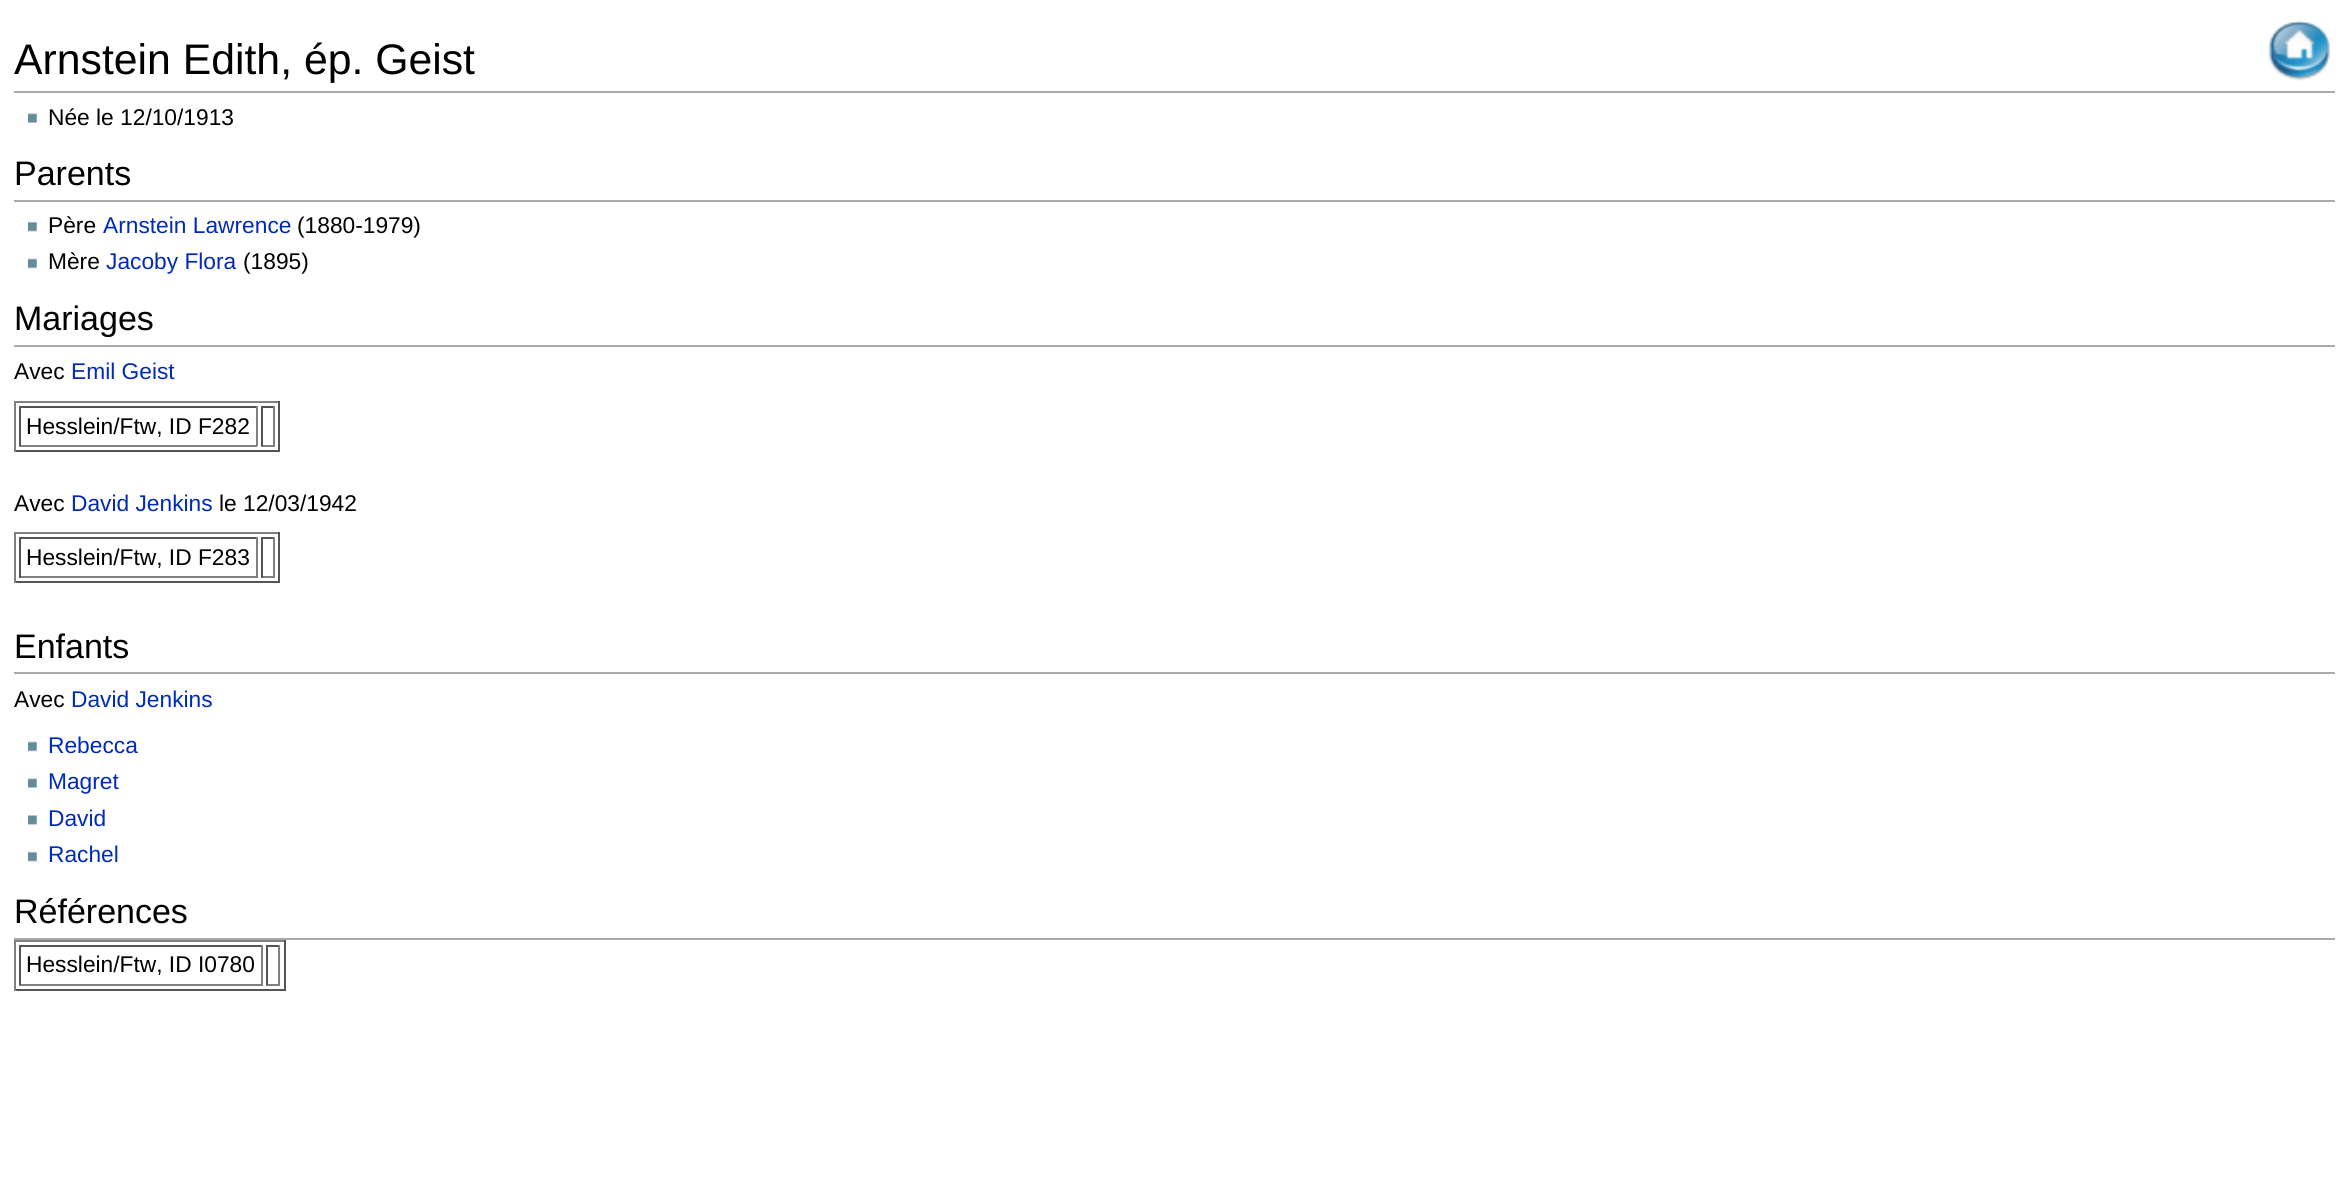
#include <cairo.h>
#include <math.h>
#include <stddef.h>

typedef struct { double x, y, w, h; unsigned color; } box_t;

static void ink(cairo_t *ctx, unsigned color) {
    cairo_set_source_rgb(ctx, (color >> 16) / 255.0, (color >> 8 & 255) / 255.0, (color & 255) / 255.0);
}

static void paste(cairo_t *ctx, const char *path, double x, double y, double w, double h) {
    cairo_surface_t *image = cairo_image_surface_create_from_png(path);
    cairo_save(ctx);
    cairo_set_source_surface(ctx, image, x, y);
    cairo_rectangle(ctx, x, y, w, h);
    cairo_fill(ctx);
    cairo_restore(ctx);
    cairo_surface_destroy(image);
}

int main(void) {
    cairo_surface_t *surface = cairo_image_surface_create(CAIRO_FORMAT_RGB24, 2348, 1178);
    cairo_t *ctx = cairo_create(surface);
    cairo_font_options_t *options = cairo_font_options_create();
    cairo_font_options_set_hint_metrics(options, CAIRO_HINT_METRICS_OFF);
    cairo_font_options_set_hint_style(options, CAIRO_HINT_STYLE_NONE);
    cairo_set_font_options(ctx, options);
    cairo_set_miter_limit(ctx, 4);
    ink(ctx, 0xFFFFFF);
    cairo_paint(ctx);
    ink(ctx, 0xAAAAAA);
    cairo_rectangle(ctx, 14, 91, 2321, 2);
    cairo_fill(ctx);
    cairo_select_font_face(ctx, "Liberation Sans", CAIRO_FONT_SLANT_NORMAL, CAIRO_FONT_WEIGHT_NORMAL);
    cairo_set_font_size(ctx, 42.75);
    ink(ctx, 0x000000);
    cairo_move_to(ctx, 14, 74);
    cairo_show_text(ctx, "Arnstein Edith, ép. Geist");
    paste(ctx, "media/1.png", 2268, 20, 63, 61);
    paste(ctx, "media/2.png", 28, 113, 9, 10);
    cairo_set_font_size(ctx, 22.75);
    cairo_move_to(ctx, 48, 125);
    cairo_show_text(ctx, "Née le 12/10/1913");
    ink(ctx, 0xAAAAAA);
    cairo_rectangle(ctx, 14, 200, 2321, 2);
    cairo_fill(ctx);
    cairo_set_font_size(ctx, 34);
    ink(ctx, 0x000000);
    cairo_move_to(ctx, 14, 185);
    cairo_show_text(ctx, "Parents");
    paste(ctx, "media/3.png", 28, 221, 9, 11);
    cairo_set_font_size(ctx, 22.75);
    cairo_move_to(ctx, 48, 233);
    cairo_show_text(ctx, "Père");
    ink(ctx, 0x002BB8);
    cairo_move_to(ctx, 103, 233);
    cairo_show_text(ctx, "Arnstein Lawrence");
    ink(ctx, 0x000000);
    cairo_move_to(ctx, 297, 233);
    cairo_show_text(ctx, "(1880-1979)");
    paste(ctx, "media/4.png", 28, 258, 9, 11);
    cairo_move_to(ctx, 48, 269);
    cairo_show_text(ctx, "Mère");
    ink(ctx, 0x002BB8);
    cairo_move_to(ctx, 106, 269);
    cairo_show_text(ctx, "Jacoby Flora");
    ink(ctx, 0x000000);
    cairo_move_to(ctx, 243, 269);
    cairo_show_text(ctx, "(1895)");
    ink(ctx, 0xAAAAAA);
    cairo_rectangle(ctx, 14, 345, 2321, 2);
    cairo_fill(ctx);
    cairo_set_font_size(ctx, 34);
    ink(ctx, 0x000000);
    cairo_move_to(ctx, 14, 330);
    cairo_show_text(ctx, "Mariages");
    cairo_set_font_size(ctx, 22.75);
    cairo_move_to(ctx, 14, 379);
    cairo_show_text(ctx, "Avec");
    ink(ctx, 0x002BB8);
    cairo_move_to(ctx, 71, 379);
    cairo_show_text(ctx, "Emil Geist");
    {
        static const box_t items[] = {
            {14, 401, 266, 2, 0x808080},
            {278, 401, 2, 51, 0x555555},
            {14, 450, 266, 2, 0x555555},
            {14, 401, 2, 51, 0x808080},
            {19, 406, 238, 2, 0x555555},
            {256, 406, 2, 40, 0x808080},
            {19, 445, 238, 2, 0x808080},
            {19, 406, 2, 40, 0x555555},
        };
        for (size_t i = 0; i < sizeof items / sizeof *items; i++) {
            ink(ctx, items[i].color);
            cairo_rectangle(ctx, items[i].x, items[i].y, items[i].w, items[i].h);
            cairo_fill(ctx);
        }
    }
    ink(ctx, 0x000000);
    cairo_move_to(ctx, 26, 434);
    cairo_show_text(ctx, "Hesslein/Ftw, ID F282");
    {
        static const box_t items[] = {
            {261, 406, 14, 2, 0x555555},
            {273, 406, 2, 40, 0x808080},
            {261, 445, 14, 2, 0x808080},
            {261, 406, 2, 40, 0x555555},
        };
        for (size_t i = 0; i < sizeof items / sizeof *items; i++) {
            ink(ctx, items[i].color);
            cairo_rectangle(ctx, items[i].x, items[i].y, items[i].w, items[i].h);
            cairo_fill(ctx);
        }
    }
    ink(ctx, 0x000000);
    cairo_move_to(ctx, 14, 511);
    cairo_show_text(ctx, "Avec");
    ink(ctx, 0x002BB8);
    cairo_move_to(ctx, 71, 511);
    cairo_show_text(ctx, "David Jenkins");
    ink(ctx, 0x000000);
    cairo_move_to(ctx, 219, 511);
    cairo_show_text(ctx, "le 12/03/1942");
    {
        static const box_t items[] = {
            {14, 532, 266, 2, 0x808080},
            {278, 532, 2, 51, 0x555555},
            {14, 581, 266, 2, 0x555555},
            {14, 532, 2, 51, 0x808080},
            {19, 537, 238, 2, 0x555555},
            {256, 537, 2, 41, 0x808080},
            {19, 576, 238, 2, 0x808080},
            {19, 537, 2, 41, 0x555555},
        };
        for (size_t i = 0; i < sizeof items / sizeof *items; i++) {
            ink(ctx, items[i].color);
            cairo_rectangle(ctx, items[i].x, items[i].y, items[i].w, items[i].h);
            cairo_fill(ctx);
        }
    }
    ink(ctx, 0x000000);
    cairo_move_to(ctx, 26, 565);
    cairo_show_text(ctx, "Hesslein/Ftw, ID F283");
    {
        static const box_t items[] = {
            {261, 537, 14, 2, 0x555555},
            {273, 537, 2, 41, 0x808080},
            {261, 576, 14, 2, 0x808080},
            {261, 537, 2, 41, 0x555555},
            {14, 672, 2321, 2, 0xAAAAAA},
        };
        for (size_t i = 0; i < sizeof items / sizeof *items; i++) {
            ink(ctx, items[i].color);
            cairo_rectangle(ctx, items[i].x, items[i].y, items[i].w, items[i].h);
            cairo_fill(ctx);
        }
    }
    cairo_set_font_size(ctx, 34);
    ink(ctx, 0x000000);
    cairo_move_to(ctx, 14, 658);
    cairo_show_text(ctx, "Enfants");
    cairo_set_font_size(ctx, 22.75);
    cairo_move_to(ctx, 14, 707);
    cairo_show_text(ctx, "Avec");
    ink(ctx, 0x002BB8);
    cairo_move_to(ctx, 71, 707);
    cairo_show_text(ctx, "David Jenkins");
    paste(ctx, "media/4.png", 28, 741, 9, 11);
    cairo_move_to(ctx, 48, 753);
    cairo_show_text(ctx, "Rebecca");
    paste(ctx, "media/5.png", 28, 778, 9, 10);
    cairo_move_to(ctx, 48, 789);
    cairo_show_text(ctx, "Magret");
    paste(ctx, "media/6.png", 28, 815, 9, 10);
    cairo_move_to(ctx, 48, 826);
    cairo_show_text(ctx, "David");
    paste(ctx, "media/3.png", 28, 851, 9, 11);
    cairo_move_to(ctx, 48, 862);
    cairo_show_text(ctx, "Rachel");
    ink(ctx, 0xAAAAAA);
    cairo_rectangle(ctx, 14, 938, 2321, 2);
    cairo_fill(ctx);
    cairo_set_font_size(ctx, 34);
    ink(ctx, 0x000000);
    cairo_move_to(ctx, 14, 923);
    cairo_show_text(ctx, "Références");
    {
        static const box_t items[] = {
            {14, 940, 271, 2, 0x808080},
            {284, 940, 2, 51, 0x555555},
            {14, 989, 271, 2, 0x555555},
            {14, 940, 2, 51, 0x808080},
            {19, 945, 244, 2, 0x555555},
            {261, 945, 2, 40, 0x808080},
            {19, 984, 244, 2, 0x808080},
            {19, 945, 2, 40, 0x555555},
        };
        for (size_t i = 0; i < sizeof items / sizeof *items; i++) {
            ink(ctx, items[i].color);
            cairo_rectangle(ctx, items[i].x, items[i].y, items[i].w, items[i].h);
            cairo_fill(ctx);
        }
    }
    cairo_set_font_size(ctx, 22.75);
    ink(ctx, 0x000000);
    cairo_move_to(ctx, 26, 972);
    cairo_show_text(ctx, "Hesslein/Ftw, ID I0780");
    {
        static const box_t items[] = {
            {266, 945, 14, 2, 0x555555},
            {278, 945, 2, 40, 0x808080},
            {266, 984, 14, 2, 0x808080},
            {266, 945, 2, 40, 0x555555},
        };
        for (size_t i = 0; i < sizeof items / sizeof *items; i++) {
            ink(ctx, items[i].color);
            cairo_rectangle(ctx, items[i].x, items[i].y, items[i].w, items[i].h);
            cairo_fill(ctx);
        }
    }
    cairo_surface_write_to_png(surface, "image.png");
    cairo_font_options_destroy(options);
    cairo_destroy(ctx);
    cairo_surface_destroy(surface);
    return 0;
}
